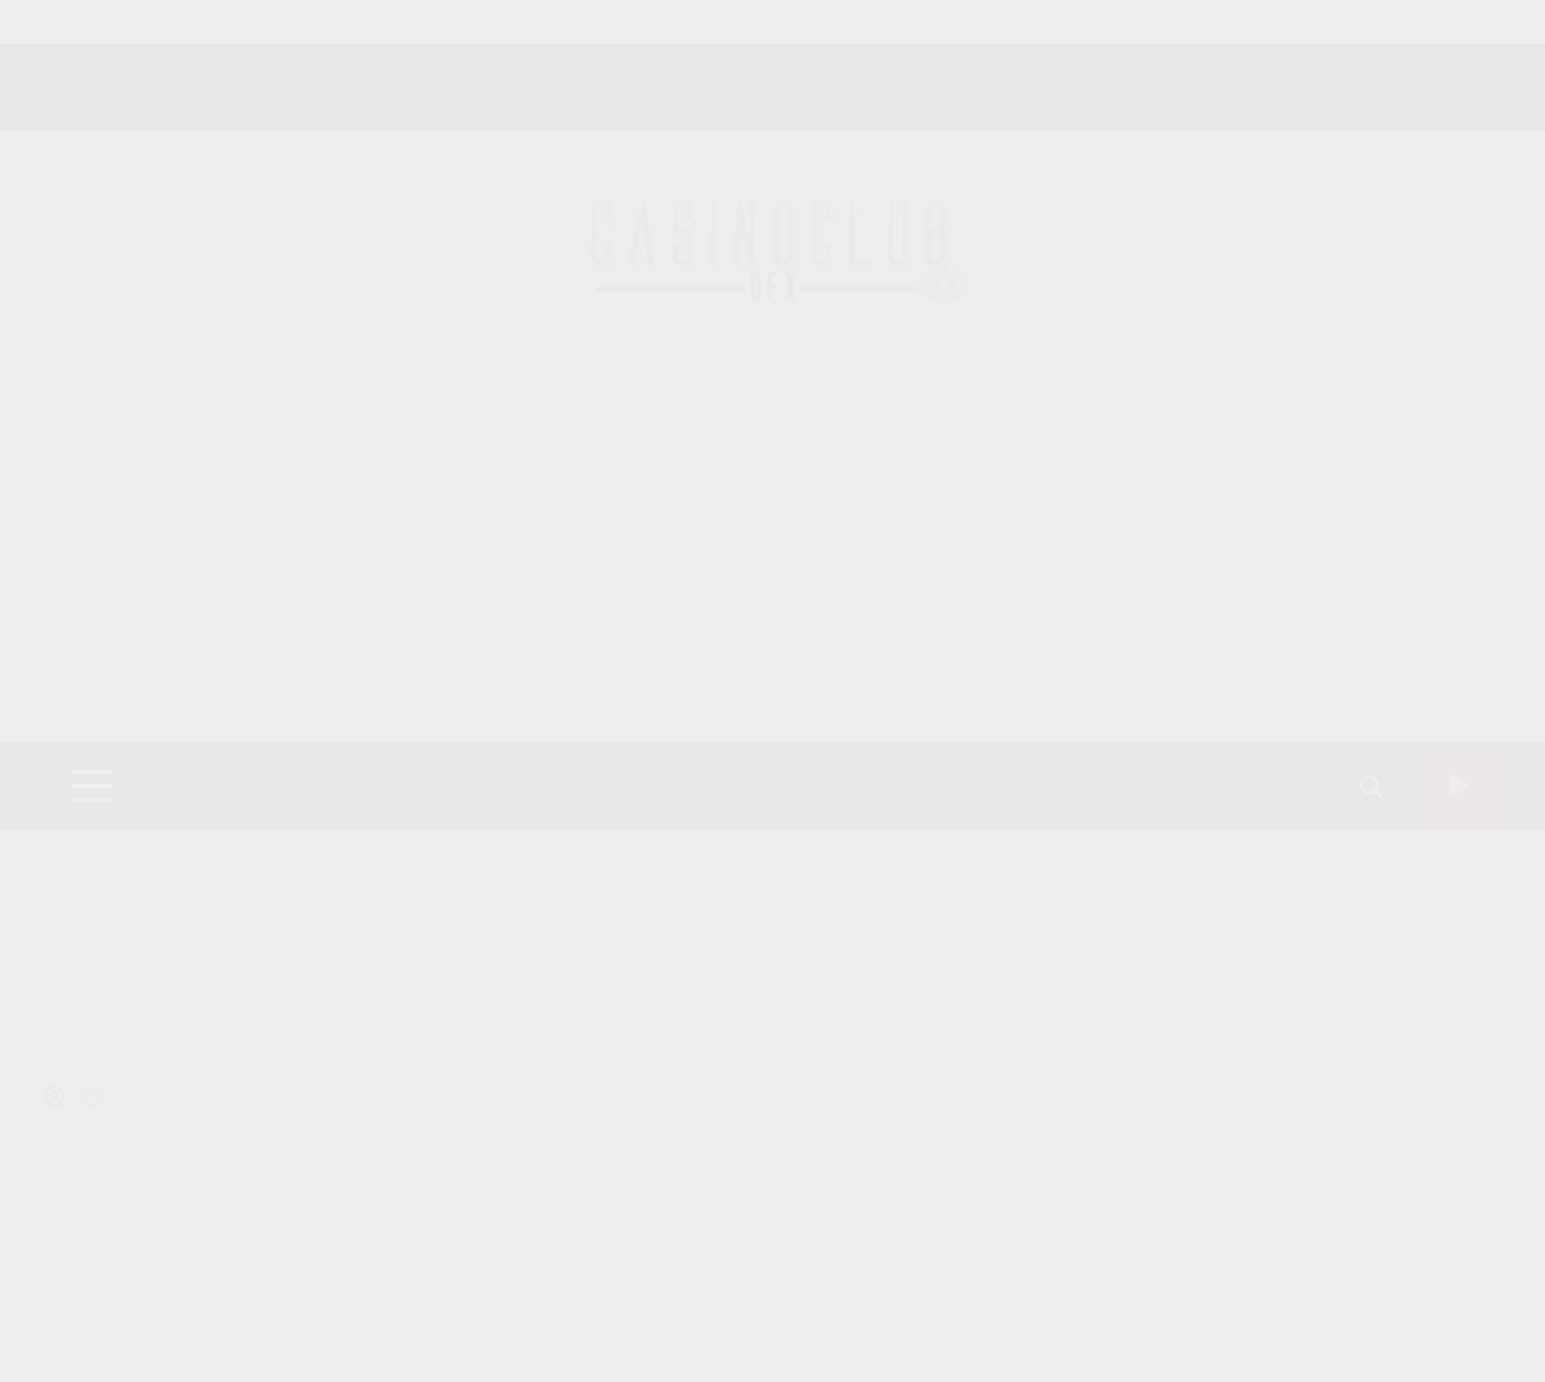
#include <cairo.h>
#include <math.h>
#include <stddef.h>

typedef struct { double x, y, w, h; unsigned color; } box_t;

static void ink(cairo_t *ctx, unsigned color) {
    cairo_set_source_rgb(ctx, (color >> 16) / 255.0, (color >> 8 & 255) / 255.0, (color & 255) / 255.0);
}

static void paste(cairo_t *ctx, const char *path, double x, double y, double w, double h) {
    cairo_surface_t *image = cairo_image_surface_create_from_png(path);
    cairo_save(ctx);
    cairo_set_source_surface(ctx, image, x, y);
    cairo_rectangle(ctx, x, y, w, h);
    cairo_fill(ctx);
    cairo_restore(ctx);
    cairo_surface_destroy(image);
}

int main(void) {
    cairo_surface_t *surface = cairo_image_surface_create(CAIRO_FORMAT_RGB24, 1545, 1382);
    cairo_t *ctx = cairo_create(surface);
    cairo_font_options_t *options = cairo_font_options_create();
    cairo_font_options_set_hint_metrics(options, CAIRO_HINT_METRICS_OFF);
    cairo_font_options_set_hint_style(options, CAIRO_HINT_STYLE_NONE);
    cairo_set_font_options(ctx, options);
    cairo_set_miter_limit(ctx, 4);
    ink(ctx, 0xEEEEEE);
    cairo_paint(ctx);
    ink(ctx, 0xE8E8E8);
    cairo_rectangle(ctx, 0, 44, 1545, 87);
    cairo_fill(ctx);
    paste(ctx, "media/1.png", 588, 196, 382, 108);
    {
        static const box_t items[] = {
            {0, 742, 1545, 88, 0xE8E8E8},
            {72, 784, 40, 4, 0xEFEFEF},
            {72, 770, 40, 4, 0xEFEFEF},
            {72, 798, 40, 4, 0xEFEFEF},
        };
        for (size_t i = 0; i < sizeof items / sizeof *items; i++) {
            ink(ctx, items[i].color);
            cairo_rectangle(ctx, items[i].x, items[i].y, items[i].w, items[i].h);
            cairo_fill(ctx);
        }
    }
    paste(ctx, "media/2.png", 1359, 775, 24, 23);
    ink(ctx, 0xECE8E8);
    cairo_rectangle(ctx, 1416, 744, 86, 86);
    cairo_fill(ctx);
    paste(ctx, "media/3.png", 1449, 774, 19, 23);
    paste(ctx, "media/4.png", 43, 1086, 22, 22);
    paste(ctx, "media/5.png", 84, 1086, 21, 22);
    cairo_surface_write_to_png(surface, "image.png");
    cairo_font_options_destroy(options);
    cairo_destroy(ctx);
    cairo_surface_destroy(surface);
    return 0;
}
